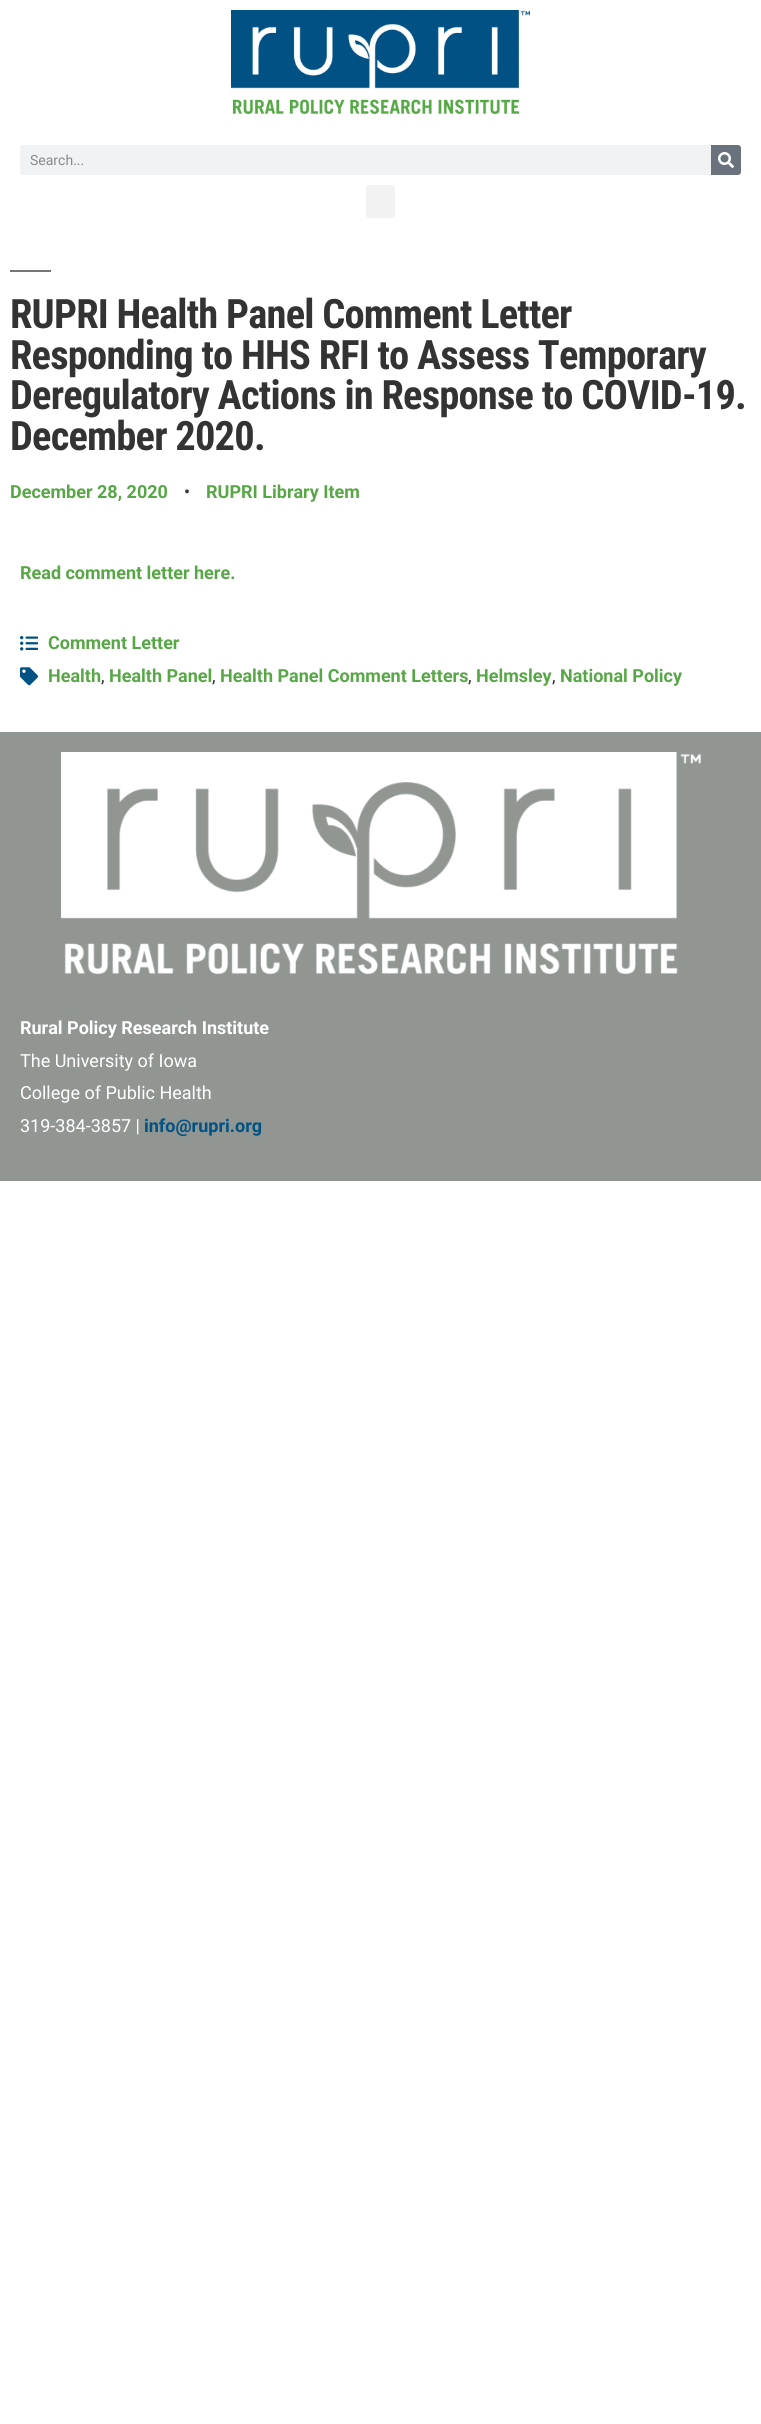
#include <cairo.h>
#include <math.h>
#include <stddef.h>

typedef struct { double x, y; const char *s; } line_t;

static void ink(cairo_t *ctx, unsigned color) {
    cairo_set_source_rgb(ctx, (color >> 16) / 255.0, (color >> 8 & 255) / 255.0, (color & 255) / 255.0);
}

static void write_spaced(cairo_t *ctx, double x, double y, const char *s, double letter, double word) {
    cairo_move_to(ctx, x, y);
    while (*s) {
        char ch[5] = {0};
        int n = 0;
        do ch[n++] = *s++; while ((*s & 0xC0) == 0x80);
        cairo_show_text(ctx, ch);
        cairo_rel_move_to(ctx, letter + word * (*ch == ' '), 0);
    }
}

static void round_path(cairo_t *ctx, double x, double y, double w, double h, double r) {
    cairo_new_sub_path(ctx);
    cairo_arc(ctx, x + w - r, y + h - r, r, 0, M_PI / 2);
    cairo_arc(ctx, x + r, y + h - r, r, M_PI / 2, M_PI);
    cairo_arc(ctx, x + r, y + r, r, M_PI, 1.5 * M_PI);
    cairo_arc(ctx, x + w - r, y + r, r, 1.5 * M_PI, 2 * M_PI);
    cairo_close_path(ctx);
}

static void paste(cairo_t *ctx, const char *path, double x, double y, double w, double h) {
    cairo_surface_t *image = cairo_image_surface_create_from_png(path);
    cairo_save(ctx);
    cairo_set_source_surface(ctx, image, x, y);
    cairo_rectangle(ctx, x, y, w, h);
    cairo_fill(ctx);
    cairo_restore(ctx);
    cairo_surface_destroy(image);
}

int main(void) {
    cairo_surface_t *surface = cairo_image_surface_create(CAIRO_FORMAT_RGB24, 761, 2424);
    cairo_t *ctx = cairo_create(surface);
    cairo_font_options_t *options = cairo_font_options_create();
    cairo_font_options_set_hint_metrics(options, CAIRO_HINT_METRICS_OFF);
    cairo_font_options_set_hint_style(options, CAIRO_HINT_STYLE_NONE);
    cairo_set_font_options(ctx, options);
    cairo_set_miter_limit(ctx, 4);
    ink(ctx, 0xFFFFFF);
    cairo_paint(ctx);
    paste(ctx, "media/1.png", 231, 10, 299, 104);
    ink(ctx, 0xF1F2F3);
    round_path(ctx, 20, 145, 721, 30, 3);
    cairo_fill(ctx);
    cairo_select_font_face(ctx, "Roboto", CAIRO_FONT_SLANT_NORMAL, CAIRO_FONT_WEIGHT_NORMAL);
    cairo_set_font_size(ctx, 14);
    ink(ctx, 0x868A8E);
    cairo_move_to(ctx, 30, 165);
    cairo_show_text(ctx, "Search...");
    ink(ctx, 0x69727D);
    cairo_new_path(ctx);
    cairo_move_to(ctx, 711, 145);
    cairo_line_to(ctx, 738, 145);
    cairo_curve_to(ctx, 739.5, 145, 741, 146.5, 741, 148);
    cairo_line_to(ctx, 741, 172);
    cairo_curve_to(ctx, 741, 173.5, 739.5, 175, 738, 175);
    cairo_line_to(ctx, 711, 175);
    cairo_close_path(ctx);
    cairo_fill(ctx);
    paste(ctx, "media/2.png", 718, 152, 16, 16);
    ink(ctx, 0xF2F2F2);
    round_path(ctx, 366, 185, 29, 33, 3);
    cairo_fill(ctx);
    ink(ctx, 0x767676);
    cairo_rectangle(ctx, 10, 270, 41, 2);
    cairo_fill(ctx);
    cairo_select_font_face(ctx, "Roboto Condensed", CAIRO_FONT_SLANT_NORMAL, CAIRO_FONT_WEIGHT_BOLD);
    cairo_set_font_size(ctx, 40.5);
    ink(ctx, 0x333333);
    {
        static const line_t items[] = {
            {10, 328, "RUPRI Health Panel Comment Letter"},
            {10, 369, "Responding to HHS RFI to Assess Temporary"},
            {10, 409, "Deregulatory Actions in Response to COVID-19."},
            {10, 450, "December 2020."},
        };
        for (size_t i = 0; i < sizeof items / sizeof *items; i++) {
            write_spaced(ctx, items[i].x, items[i].y, items[i].s, -0.8, 0);
        }
    }
    cairo_select_font_face(ctx, "Roboto", CAIRO_FONT_SLANT_NORMAL, CAIRO_FONT_WEIGHT_BOLD);
    cairo_set_font_size(ctx, 18);
    ink(ctx, 0x57A746);
    cairo_move_to(ctx, 10, 498);
    cairo_show_text(ctx, "December 28, 2020");
    cairo_select_font_face(ctx, "Roboto", CAIRO_FONT_SLANT_NORMAL, CAIRO_FONT_WEIGHT_NORMAL);
    ink(ctx, 0x333333);
    cairo_move_to(ctx, 184, 498);
    cairo_show_text(ctx, "•");
    cairo_select_font_face(ctx, "Roboto", CAIRO_FONT_SLANT_NORMAL, CAIRO_FONT_WEIGHT_BOLD);
    ink(ctx, 0x57A746);
    cairo_move_to(ctx, 206, 498);
    cairo_show_text(ctx, "RUPRI Library Item");
    cairo_move_to(ctx, 20, 579);
    cairo_show_text(ctx, "Read comment letter here.");
    paste(ctx, "media/3.png", 20, 636, 18, 15);
    cairo_move_to(ctx, 48, 649);
    cairo_show_text(ctx, "Comment Letter");
    paste(ctx, "media/4.png", 20, 667, 18, 19);
    cairo_move_to(ctx, 48, 682);
    cairo_show_text(ctx, "Health");
    cairo_select_font_face(ctx, "Roboto", CAIRO_FONT_SLANT_NORMAL, CAIRO_FONT_WEIGHT_NORMAL);
    ink(ctx, 0x333333);
    cairo_move_to(ctx, 101, 682);
    cairo_show_text(ctx, ",");
    cairo_select_font_face(ctx, "Roboto", CAIRO_FONT_SLANT_NORMAL, CAIRO_FONT_WEIGHT_BOLD);
    ink(ctx, 0x57A746);
    cairo_move_to(ctx, 109, 682);
    cairo_show_text(ctx, "Health Panel");
    cairo_select_font_face(ctx, "Roboto", CAIRO_FONT_SLANT_NORMAL, CAIRO_FONT_WEIGHT_NORMAL);
    ink(ctx, 0x333333);
    cairo_move_to(ctx, 212, 682);
    cairo_show_text(ctx, ",");
    cairo_select_font_face(ctx, "Roboto", CAIRO_FONT_SLANT_NORMAL, CAIRO_FONT_WEIGHT_BOLD);
    ink(ctx, 0x57A746);
    cairo_move_to(ctx, 220, 682);
    cairo_show_text(ctx, "Health Panel Comment Letters");
    cairo_select_font_face(ctx, "Roboto", CAIRO_FONT_SLANT_NORMAL, CAIRO_FONT_WEIGHT_NORMAL);
    ink(ctx, 0x333333);
    cairo_move_to(ctx, 468, 682);
    cairo_show_text(ctx, ",");
    cairo_select_font_face(ctx, "Roboto", CAIRO_FONT_SLANT_NORMAL, CAIRO_FONT_WEIGHT_BOLD);
    ink(ctx, 0x57A746);
    cairo_move_to(ctx, 476, 682);
    cairo_show_text(ctx, "Helmsley");
    cairo_select_font_face(ctx, "Roboto", CAIRO_FONT_SLANT_NORMAL, CAIRO_FONT_WEIGHT_NORMAL);
    ink(ctx, 0x333333);
    cairo_move_to(ctx, 552, 682);
    cairo_show_text(ctx, ",");
    cairo_select_font_face(ctx, "Roboto", CAIRO_FONT_SLANT_NORMAL, CAIRO_FONT_WEIGHT_BOLD);
    ink(ctx, 0x57A746);
    cairo_move_to(ctx, 560, 682);
    cairo_show_text(ctx, "National Policy");
    ink(ctx, 0x919693);
    cairo_rectangle(ctx, 0, 732, 761, 449);
    cairo_fill(ctx);
    paste(ctx, "media/5.png", 61, 752, 640, 222);
    ink(ctx, 0xFFFFFF);
    cairo_move_to(ctx, 20, 1034);
    cairo_show_text(ctx, "Rural Policy Research Institute");
    cairo_select_font_face(ctx, "Roboto", CAIRO_FONT_SLANT_NORMAL, CAIRO_FONT_WEIGHT_NORMAL);
    {
        static const line_t items[] = {
            {20, 1067, "The University of Iowa"},
            {20, 1099, "College of Public Health"},
            {20, 1132, "319-384-3857 |"},
        };
        for (size_t i = 0; i < sizeof items / sizeof *items; i++) {
            cairo_move_to(ctx, items[i].x, items[i].y);
            cairo_show_text(ctx, items[i].s);
        }
    }
    cairo_select_font_face(ctx, "Roboto", CAIRO_FONT_SLANT_NORMAL, CAIRO_FONT_WEIGHT_BOLD);
    ink(ctx, 0x005284);
    cairo_move_to(ctx, 144, 1132);
    cairo_show_text(ctx, "info@rupri.org");
    cairo_surface_write_to_png(surface, "image.png");
    cairo_font_options_destroy(options);
    cairo_destroy(ctx);
    cairo_surface_destroy(surface);
    return 0;
}
